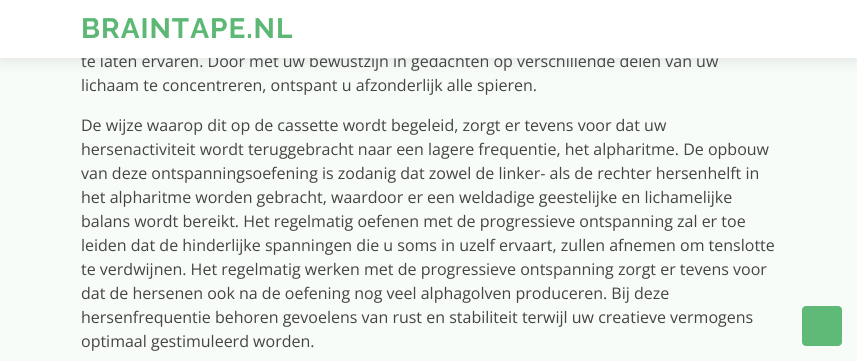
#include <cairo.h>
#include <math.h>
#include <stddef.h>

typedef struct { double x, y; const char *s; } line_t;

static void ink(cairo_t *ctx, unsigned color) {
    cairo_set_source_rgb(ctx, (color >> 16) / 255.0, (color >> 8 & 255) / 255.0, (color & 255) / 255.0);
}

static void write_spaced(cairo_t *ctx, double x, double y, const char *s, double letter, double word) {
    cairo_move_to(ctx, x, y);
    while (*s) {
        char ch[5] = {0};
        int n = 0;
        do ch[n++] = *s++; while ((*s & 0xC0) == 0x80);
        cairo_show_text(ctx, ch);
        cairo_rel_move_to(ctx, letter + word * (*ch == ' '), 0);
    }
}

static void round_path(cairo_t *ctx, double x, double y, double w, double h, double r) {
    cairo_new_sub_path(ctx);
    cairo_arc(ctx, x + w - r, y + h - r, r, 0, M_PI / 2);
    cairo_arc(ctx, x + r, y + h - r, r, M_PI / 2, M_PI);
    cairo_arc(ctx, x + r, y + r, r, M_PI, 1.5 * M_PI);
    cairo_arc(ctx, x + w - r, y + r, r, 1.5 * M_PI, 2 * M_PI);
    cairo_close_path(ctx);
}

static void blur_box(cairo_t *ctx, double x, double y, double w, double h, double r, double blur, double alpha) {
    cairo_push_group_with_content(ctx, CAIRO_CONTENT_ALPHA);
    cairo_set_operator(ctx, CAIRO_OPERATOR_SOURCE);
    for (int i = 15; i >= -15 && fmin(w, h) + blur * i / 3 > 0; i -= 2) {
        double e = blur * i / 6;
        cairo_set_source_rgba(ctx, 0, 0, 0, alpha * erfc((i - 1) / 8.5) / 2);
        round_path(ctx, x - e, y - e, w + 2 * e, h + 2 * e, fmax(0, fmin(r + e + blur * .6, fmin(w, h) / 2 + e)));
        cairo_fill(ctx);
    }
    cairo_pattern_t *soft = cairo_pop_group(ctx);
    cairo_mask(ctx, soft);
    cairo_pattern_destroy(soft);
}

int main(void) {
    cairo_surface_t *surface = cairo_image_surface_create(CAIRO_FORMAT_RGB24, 857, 361);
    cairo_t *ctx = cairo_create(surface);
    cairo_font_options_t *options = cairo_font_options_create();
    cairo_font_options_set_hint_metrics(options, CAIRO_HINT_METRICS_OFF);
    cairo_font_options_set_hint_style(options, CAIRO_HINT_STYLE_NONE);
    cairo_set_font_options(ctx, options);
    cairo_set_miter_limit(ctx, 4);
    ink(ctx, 0xF8FCF9);
    cairo_paint(ctx);
    ink(ctx, 0x000000);
    blur_box(ctx, 0, 2, 857, 58, 0, 7.5, 0.1);
    cairo_select_font_face(ctx, "Open Sans", CAIRO_FONT_SLANT_NORMAL, CAIRO_FONT_WEIGHT_NORMAL);
    cairo_set_font_size(ctx, 16);
    ink(ctx, 0x444444);
    cairo_move_to(ctx, 81, 67);
    cairo_show_text(ctx, "te laten ervaren. Door met uw bewustzijn in gedachten op verschillende delen van uw");
    ink(ctx, 0xFFFFFF);
    cairo_rectangle(ctx, 0, 0, 857, 58);
    cairo_fill(ctx);
    cairo_select_font_face(ctx, "Raleway", CAIRO_FONT_SLANT_NORMAL, CAIRO_FONT_WEIGHT_BOLD);
    cairo_set_font_size(ctx, 28);
    ink(ctx, 0x5CB874);
    write_spaced(ctx, 81, 38, "BRAINTAPE.NL", 1, 0);
    cairo_select_font_face(ctx, "Open Sans", CAIRO_FONT_SLANT_NORMAL, CAIRO_FONT_WEIGHT_NORMAL);
    cairo_set_font_size(ctx, 16);
    ink(ctx, 0x444444);
    {
        static const line_t items[] = {
            {81, 91, "lichaam te concentreren, ontspant u afzonderlijk alle spieren."},
            {81, 131, "De wijze waarop dit op de cassette wordt begeleid, zorgt er tevens voor dat uw"},
            {81, 155, "hersenactiviteit wordt teruggebracht naar een lagere frequentie, het alpharitme. De opbouw"},
            {81, 179, "van deze ontspanningsoefening is zodanig dat zowel de linker- als de rechter hersenhelft in"},
            {81, 203, "het alpharitme worden gebracht, waardoor er een weldadige geestelijke en lichamelijke"},
            {81, 227, "balans wordt bereikt. Het regelmatig oefenen met de progressieve ontspanning zal er toe"},
            {81, 251, "leiden dat de hinderlijke spanningen die u soms in uzelf ervaart, zullen afnemen om tenslotte"},
            {81, 275, "te verdwijnen. Het regelmatig werken met de progressieve ontspanning zorgt er tevens voor"},
            {81, 299, "dat de hersenen ook na de oefening nog veel alphagolven produceren. Bij deze"},
            {81, 323, "hersenfrequentie behoren gevoelens van rust en stabiliteit terwijl uw creatieve vermogens"},
            {81, 347, "optimaal gestimuleerd worden."},
        };
        for (size_t i = 0; i < sizeof items / sizeof *items; i++) {
            cairo_move_to(ctx, items[i].x, items[i].y);
            cairo_show_text(ctx, items[i].s);
        }
    }
    ink(ctx, 0x5FB977);
    round_path(ctx, 802, 306, 40, 40, 4);
    cairo_fill(ctx);
    cairo_surface_write_to_png(surface, "image.png");
    cairo_font_options_destroy(options);
    cairo_destroy(ctx);
    cairo_surface_destroy(surface);
    return 0;
}
